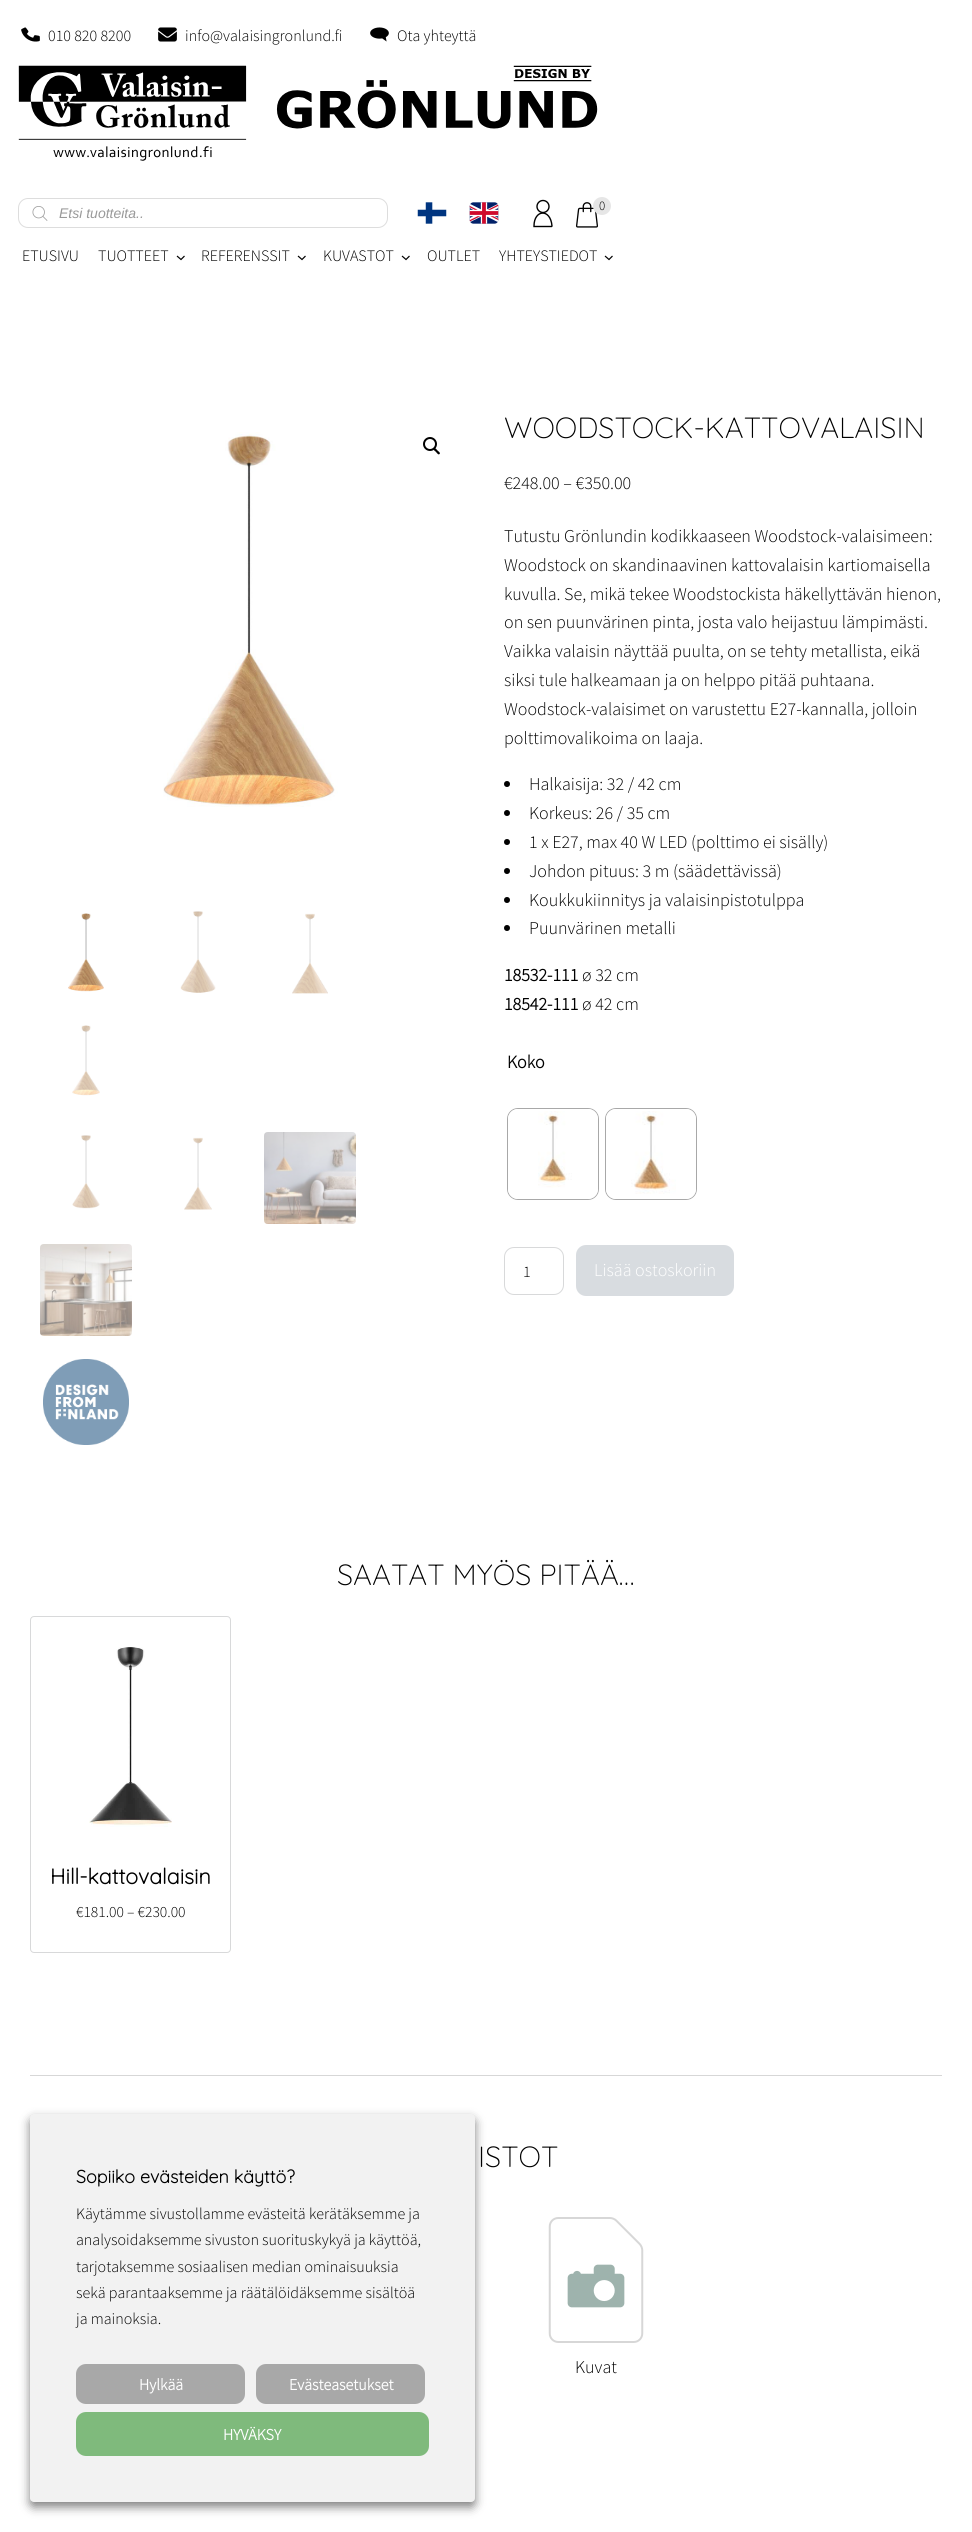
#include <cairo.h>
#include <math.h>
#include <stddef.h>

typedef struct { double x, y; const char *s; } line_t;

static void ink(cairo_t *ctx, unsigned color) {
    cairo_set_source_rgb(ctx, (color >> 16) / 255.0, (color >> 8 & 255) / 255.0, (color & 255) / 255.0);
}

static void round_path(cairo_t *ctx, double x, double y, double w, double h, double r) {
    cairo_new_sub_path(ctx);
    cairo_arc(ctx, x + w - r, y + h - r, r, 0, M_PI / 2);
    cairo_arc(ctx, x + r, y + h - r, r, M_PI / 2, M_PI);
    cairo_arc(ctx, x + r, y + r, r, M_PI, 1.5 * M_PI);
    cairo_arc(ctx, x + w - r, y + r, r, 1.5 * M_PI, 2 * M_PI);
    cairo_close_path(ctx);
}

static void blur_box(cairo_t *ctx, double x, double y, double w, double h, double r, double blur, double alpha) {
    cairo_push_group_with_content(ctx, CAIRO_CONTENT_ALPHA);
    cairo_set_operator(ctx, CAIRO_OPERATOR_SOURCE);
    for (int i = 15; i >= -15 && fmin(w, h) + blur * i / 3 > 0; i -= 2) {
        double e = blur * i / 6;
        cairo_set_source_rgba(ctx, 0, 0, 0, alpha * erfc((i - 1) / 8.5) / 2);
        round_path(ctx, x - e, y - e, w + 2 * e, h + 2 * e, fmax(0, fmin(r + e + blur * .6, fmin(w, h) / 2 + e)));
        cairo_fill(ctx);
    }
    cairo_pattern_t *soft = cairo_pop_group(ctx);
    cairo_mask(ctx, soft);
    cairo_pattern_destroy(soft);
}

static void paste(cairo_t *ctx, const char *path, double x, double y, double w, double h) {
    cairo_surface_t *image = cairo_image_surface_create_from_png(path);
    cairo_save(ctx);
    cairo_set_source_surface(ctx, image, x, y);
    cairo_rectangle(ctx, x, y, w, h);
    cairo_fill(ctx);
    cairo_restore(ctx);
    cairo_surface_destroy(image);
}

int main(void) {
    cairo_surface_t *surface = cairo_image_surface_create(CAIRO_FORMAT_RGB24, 972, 2532);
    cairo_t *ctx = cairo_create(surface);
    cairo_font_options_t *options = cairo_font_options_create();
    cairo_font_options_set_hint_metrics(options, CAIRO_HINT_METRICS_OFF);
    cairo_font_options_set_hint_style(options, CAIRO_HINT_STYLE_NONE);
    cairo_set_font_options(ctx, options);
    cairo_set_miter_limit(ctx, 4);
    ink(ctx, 0xFFFFFF);
    cairo_paint(ctx);
    paste(ctx, "media/1.png", 21, 27, 19, 15);
    cairo_select_font_face(ctx, "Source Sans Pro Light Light", CAIRO_FONT_SLANT_NORMAL, CAIRO_FONT_WEIGHT_NORMAL);
    cairo_set_font_size(ctx, 16);
    ink(ctx, 0x000000);
    cairo_move_to(ctx, 48, 41);
    cairo_show_text(ctx, "010 820 8200");
    paste(ctx, "media/2.png", 158, 27, 19, 15);
    cairo_move_to(ctx, 185, 41);
    cairo_show_text(ctx, "info@valaisingronlund.fi");
    paste(ctx, "media/3.png", 370, 27, 19, 15);
    cairo_move_to(ctx, 397, 41);
    cairo_show_text(ctx, "Ota yhteyttä");
    paste(ctx, "media/4.png", 18, 65, 580, 96);
    round_path(ctx, 18.5, 198.5, 369, 29, 9.5);
    ink(ctx, 0xDDDDDD);
    cairo_set_line_width(ctx, 1);
    cairo_stroke(ctx);
    paste(ctx, "media/5.png", 32, 206, 16, 15);
    cairo_select_font_face(ctx, "Liberation Sans", CAIRO_FONT_SLANT_ITALIC, CAIRO_FONT_WEIGHT_NORMAL);
    cairo_set_font_size(ctx, 14);
    ink(ctx, 0x999999);
    cairo_move_to(ctx, 59, 218);
    cairo_show_text(ctx, "Etsi tuotteita..");
    paste(ctx, "media/6.png", 417, 202, 30, 22);
    paste(ctx, "media/7.png", 469, 202, 30, 22);
    cairo_arc(ctx, 543, 206.5, 6, 0, 2 * M_PI);
    ink(ctx, 0x000000);
    cairo_set_line_width(ctx, 1.4);
    cairo_stroke(ctx);
    cairo_new_path(ctx);
    cairo_move_to(ctx, 534, 226);
    cairo_line_to(ctx, 534, 226.5);
    cairo_line_to(ctx, 551.5, 226.5);
    cairo_line_to(ctx, 552, 226);
    cairo_curve_to(ctx, 550.5, 208, 534, 209.5, 534, 226);
    cairo_close_path(ctx);
    cairo_stroke(ctx);
    paste(ctx, "media/8.png", 576, 202, 22, 26);
    ink(ctx, 0xE6E6E6);
    cairo_arc(ctx, 602, 206, 9, 0, 2 * M_PI);
    cairo_fill(ctx);
    cairo_select_font_face(ctx, "Source Sans Pro Light Light", CAIRO_FONT_SLANT_NORMAL, CAIRO_FONT_WEIGHT_NORMAL);
    cairo_set_font_size(ctx, 13);
    ink(ctx, 0x000000);
    cairo_move_to(ctx, 599, 210);
    cairo_show_text(ctx, "0");
    cairo_set_font_size(ctx, 16);
    cairo_move_to(ctx, 22, 261);
    cairo_show_text(ctx, "ETUSIVU");
    cairo_move_to(ctx, 98, 261);
    cairo_show_text(ctx, "TUOTTEET");
    cairo_new_path(ctx);
    cairo_move_to(ctx, 177, 256);
    cairo_line_to(ctx, 181, 259.5);
    cairo_line_to(ctx, 184.5, 256);
    cairo_set_line_width(ctx, 1.2);
    cairo_stroke(ctx);
    cairo_move_to(ctx, 201, 261);
    cairo_show_text(ctx, "REFERENSSIT");
    cairo_new_path(ctx);
    cairo_move_to(ctx, 298, 256);
    cairo_line_to(ctx, 302, 259.5);
    cairo_line_to(ctx, 305.5, 256);
    cairo_stroke(ctx);
    cairo_move_to(ctx, 323, 261);
    cairo_show_text(ctx, "KUVASTOT");
    cairo_new_path(ctx);
    cairo_move_to(ctx, 402, 256);
    cairo_line_to(ctx, 406, 259.5);
    cairo_line_to(ctx, 409.5, 256);
    cairo_stroke(ctx);
    cairo_move_to(ctx, 427, 261);
    cairo_show_text(ctx, "OUTLET");
    cairo_move_to(ctx, 499, 261);
    cairo_show_text(ctx, "YHTEYSTIEDOT");
    cairo_new_path(ctx);
    cairo_move_to(ctx, 605, 256);
    cairo_line_to(ctx, 609, 259.5);
    cairo_line_to(ctx, 612.5, 256);
    cairo_stroke(ctx);
    paste(ctx, "media/9.png", 163, 432, 175, 375);
    cairo_arc(ctx, 430, 444, 6, 0, 2 * M_PI);
    cairo_set_line_width(ctx, 2);
    cairo_stroke(ctx);
    cairo_new_path(ctx);
    cairo_move_to(ctx, 434, 448.5);
    cairo_curve_to(ctx, 435, 447, 437, 450, 437.5, 450.5);
    cairo_curve_to(ctx, 438, 451, 441, 453, 439.5, 454);
    cairo_curve_to(ctx, 438.5, 455.5, 436.5, 452.5, 436, 452);
    cairo_curve_to(ctx, 435.5, 451.5, 432.5, 449.5, 434, 448.5);
    cairo_close_path(ctx);
    cairo_fill(ctx);
    paste(ctx, "media/10.png", 68, 913, 36, 79);
    paste(ctx, "media/11.png", 180, 911, 36, 82);
    paste(ctx, "media/12.png", 292, 913, 36, 81);
    paste(ctx, "media/13.png", 72, 1025, 28, 71);
    paste(ctx, "media/14.png", 72, 1135, 28, 74);
    paste(ctx, "media/15.png", 184, 1137, 28, 73);
    paste(ctx, "media/16.png", 264, 1132, 92, 92);
    paste(ctx, "media/17.png", 40, 1244, 92, 92);
    paste(ctx, "media/18.png", 43, 1359, 86, 86);
    cairo_select_font_face(ctx, "Quicksand Light", CAIRO_FONT_SLANT_NORMAL, CAIRO_FONT_WEIGHT_NORMAL);
    cairo_set_font_size(ctx, 29.2);
    cairo_move_to(ctx, 504, 438);
    cairo_show_text(ctx, "WOODSTOCK-KATTOVALAISIN");
    cairo_select_font_face(ctx, "Source Sans Pro Light Light", CAIRO_FONT_SLANT_NORMAL, CAIRO_FONT_WEIGHT_NORMAL);
    cairo_set_font_size(ctx, 18);
    {
        static const line_t items[] = {
            {504, 489, "€248.00 – €350.00"},
            {504, 542, "Tutustu Grönlundin kodikkaaseen Woodstock-valaisimeen:"},
            {504, 571, "Woodstock on skandinaavinen kattovalaisin kartiomaisella"},
            {504, 600, "kuvulla. Se, mikä tekee Woodstockista häkellyttävän hienon,"},
            {504, 628, "on sen puunvärinen pinta, josta valo heijastuu lämpimästi."},
            {504, 657, "Vaikka valaisin näyttää puulta, on se tehty metallista, eikä"},
            {504, 686, "siksi tule halkeamaan ja on helppo pitää puhtaana."},
            {504, 715, "Woodstock-valaisimet on varustettu E27-kannalla, jolloin"},
            {504, 744, "polttimovalikoima on laaja."},
        };
        for (size_t i = 0; i < sizeof items / sizeof *items; i++) {
            cairo_move_to(ctx, items[i].x, items[i].y);
            cairo_show_text(ctx, items[i].s);
        }
    }
    cairo_new_path(ctx);
    cairo_arc(ctx, 507, 784, 3, 0, 2 * M_PI);
    cairo_fill(ctx);
    cairo_move_to(ctx, 529, 790);
    cairo_show_text(ctx, "Halkaisija: 32 / 42 cm");
    cairo_new_path(ctx);
    cairo_arc(ctx, 507, 813, 3, 0, 2 * M_PI);
    cairo_fill(ctx);
    cairo_move_to(ctx, 529, 819);
    cairo_show_text(ctx, "Korkeus: 26 / 35 cm");
    cairo_new_path(ctx);
    cairo_arc(ctx, 507, 842, 3, 0, 2 * M_PI);
    cairo_fill(ctx);
    cairo_move_to(ctx, 529, 848);
    cairo_show_text(ctx, "1 x E27, max 40 W LED (polttimo ei sisälly)");
    cairo_new_path(ctx);
    cairo_arc(ctx, 507, 871, 3, 0, 2 * M_PI);
    cairo_fill(ctx);
    cairo_move_to(ctx, 529, 877);
    cairo_show_text(ctx, "Johdon pituus: 3 m (säädettävissä)");
    cairo_new_path(ctx);
    cairo_arc(ctx, 507, 900, 3, 0, 2 * M_PI);
    cairo_fill(ctx);
    cairo_move_to(ctx, 529, 906);
    cairo_show_text(ctx, "Koukkukiinnitys ja valaisinpistotulppa");
    cairo_new_path(ctx);
    cairo_arc(ctx, 507, 928, 3, 0, 2 * M_PI);
    cairo_fill(ctx);
    cairo_move_to(ctx, 529, 934);
    cairo_show_text(ctx, "Puunvärinen metalli");
    cairo_select_font_face(ctx, "Source Sans Pro Light", CAIRO_FONT_SLANT_NORMAL, CAIRO_FONT_WEIGHT_BOLD);
    cairo_move_to(ctx, 504, 981);
    cairo_show_text(ctx, "18532-111");
    cairo_select_font_face(ctx, "Source Sans Pro Light Light", CAIRO_FONT_SLANT_NORMAL, CAIRO_FONT_WEIGHT_NORMAL);
    cairo_move_to(ctx, 582, 981);
    cairo_show_text(ctx, "ø 32 cm");
    cairo_select_font_face(ctx, "Source Sans Pro Light", CAIRO_FONT_SLANT_NORMAL, CAIRO_FONT_WEIGHT_BOLD);
    cairo_move_to(ctx, 504, 1010);
    cairo_show_text(ctx, "18542-111");
    cairo_select_font_face(ctx, "Source Sans Pro Light Light", CAIRO_FONT_SLANT_NORMAL, CAIRO_FONT_WEIGHT_NORMAL);
    cairo_move_to(ctx, 582, 1010);
    cairo_show_text(ctx, "ø 42 cm");
    cairo_select_font_face(ctx, "Source Sans Pro Light", CAIRO_FONT_SLANT_NORMAL, CAIRO_FONT_WEIGHT_BOLD);
    cairo_move_to(ctx, 507, 1068);
    cairo_show_text(ctx, "Koko");
    round_path(ctx, 507.5, 1108.5, 91, 91, 10.5);
    ink(ctx, 0xA8A8A8);
    cairo_set_line_width(ctx, 1);
    cairo_stroke(ctx);
    ink(ctx, 0xFFFFFF);
    round_path(ctx, 508, 1109, 90, 90, 10);
    cairo_fill(ctx);
    paste(ctx, "media/19.png", 538, 1111, 34, 77);
    round_path(ctx, 605.5, 1108.5, 91, 91, 10.5);
    ink(ctx, 0xA8A8A8);
    cairo_stroke(ctx);
    ink(ctx, 0xFFFFFF);
    round_path(ctx, 606, 1109, 90, 90, 10);
    cairo_fill(ctx);
    paste(ctx, "media/20.png", 631, 1111, 45, 83);
    round_path(ctx, 504.5, 1247.5, 59, 47, 9.5);
    ink(ctx, 0xD8D9DA);
    cairo_stroke(ctx);
    cairo_select_font_face(ctx, "Source Sans Pro Light Light", CAIRO_FONT_SLANT_NORMAL, CAIRO_FONT_WEIGHT_NORMAL);
    cairo_set_font_size(ctx, 16);
    ink(ctx, 0x000000);
    cairo_move_to(ctx, 523, 1277);
    cairo_show_text(ctx, "1");
    ink(ctx, 0xD8DCE0);
    round_path(ctx, 576, 1245, 158, 51, 10);
    cairo_fill(ctx);
    cairo_set_font_size(ctx, 18);
    ink(ctx, 0xFFFFFF);
    cairo_move_to(ctx, 594, 1276);
    cairo_show_text(ctx, "Lisää ostoskoriin");
    cairo_select_font_face(ctx, "Quicksand Light", CAIRO_FONT_SLANT_NORMAL, CAIRO_FONT_WEIGHT_NORMAL);
    cairo_set_font_size(ctx, 29.2);
    ink(ctx, 0x000000);
    cairo_move_to(ctx, 337, 1585);
    cairo_show_text(ctx, "SAATAT MYÖS PITÄÄ…");
    round_path(ctx, 30.5, 1616.5, 200, 336, 3.5);
    ink(ctx, 0xD8D9DA);
    cairo_stroke(ctx);
    paste(ctx, "media/21.png", 89, 1647, 83, 180);
    cairo_select_font_face(ctx, "Quicksand", CAIRO_FONT_SLANT_NORMAL, CAIRO_FONT_WEIGHT_BOLD);
    cairo_set_font_size(ctx, 21.5);
    ink(ctx, 0x000000);
    cairo_move_to(ctx, 50, 1884);
    cairo_show_text(ctx, "Hill-kattovalaisin");
    cairo_select_font_face(ctx, "Source Sans Pro Light Light", CAIRO_FONT_SLANT_NORMAL, CAIRO_FONT_WEIGHT_NORMAL);
    cairo_set_font_size(ctx, 15.5);
    cairo_move_to(ctx, 76, 1917);
    cairo_show_text(ctx, "€181.00 – €230.00");
    ink(ctx, 0xD7D7D7);
    cairo_rectangle(ctx, 30, 2075, 912, 1);
    cairo_fill(ctx);
    cairo_select_font_face(ctx, "Quicksand Light", CAIRO_FONT_SLANT_NORMAL, CAIRO_FONT_WEIGHT_NORMAL);
    cairo_set_font_size(ctx, 29.2);
    ink(ctx, 0x000000);
    cairo_move_to(ctx, 478, 2167);
    cairo_show_text(ctx, "ISTOT");
    paste(ctx, "media/22.png", 548, 2217, 96, 126);
    cairo_select_font_face(ctx, "Source Sans Pro Light Light", CAIRO_FONT_SLANT_NORMAL, CAIRO_FONT_WEIGHT_NORMAL);
    cairo_set_font_size(ctx, 18);
    cairo_move_to(ctx, 575, 2373);
    cairo_show_text(ctx, "Kuvat");
    ink(ctx, 0x000000);
    blur_box(ctx, 30, 2119, 445, 388, 4, 5, 0.5);
    ink(ctx, 0xF2F2F2);
    round_path(ctx, 30, 2114, 445, 388, 4);
    cairo_fill(ctx);
    cairo_select_font_face(ctx, "Quicksand", CAIRO_FONT_SLANT_NORMAL, CAIRO_FONT_WEIGHT_BOLD);
    ink(ctx, 0x000000);
    cairo_move_to(ctx, 76, 2183);
    cairo_show_text(ctx, "Sopiiko evästeiden käyttö?");
    cairo_select_font_face(ctx, "Source Sans Pro Light Light", CAIRO_FONT_SLANT_NORMAL, CAIRO_FONT_WEIGHT_NORMAL);
    cairo_set_font_size(ctx, 16);
    {
        static const line_t items[] = {
            {76, 2219, "Käytämme sivustollamme evästeitä kerätäksemme ja"},
            {76, 2245, "analysoidaksemme sivuston suorituskykyä ja käyttöä,"},
            {76, 2272, "tarjotaksemme sosiaalisen median ominaisuuksia"},
            {76, 2298, "sekä parantaaksemme ja räätälöidäksemme sisältöä"},
            {76, 2324, "ja mainoksia."},
        };
        for (size_t i = 0; i < sizeof items / sizeof *items; i++) {
            cairo_move_to(ctx, items[i].x, items[i].y);
            cairo_show_text(ctx, items[i].s);
        }
    }
    ink(ctx, 0xA8A8A8);
    round_path(ctx, 76, 2364, 169, 40, 10);
    cairo_fill(ctx);
    cairo_select_font_face(ctx, "Source Sans Pro Light", CAIRO_FONT_SLANT_NORMAL, CAIRO_FONT_WEIGHT_BOLD);
    ink(ctx, 0xFFFFFF);
    cairo_move_to(ctx, 139, 2390);
    cairo_show_text(ctx, "Hylkää");
    ink(ctx, 0xA8A8A8);
    round_path(ctx, 256, 2364, 169, 40, 10);
    cairo_fill(ctx);
    ink(ctx, 0xFFFFFF);
    cairo_move_to(ctx, 289, 2390);
    cairo_show_text(ctx, "Evästeasetukset");
    ink(ctx, 0x7FBA7C);
    round_path(ctx, 76, 2412, 353, 44, 10);
    cairo_fill(ctx);
    ink(ctx, 0xFFFFFF);
    cairo_move_to(ctx, 223, 2440);
    cairo_show_text(ctx, "HYVÄKSY");
    cairo_surface_write_to_png(surface, "image.png");
    cairo_font_options_destroy(options);
    cairo_destroy(ctx);
    cairo_surface_destroy(surface);
    return 0;
}
